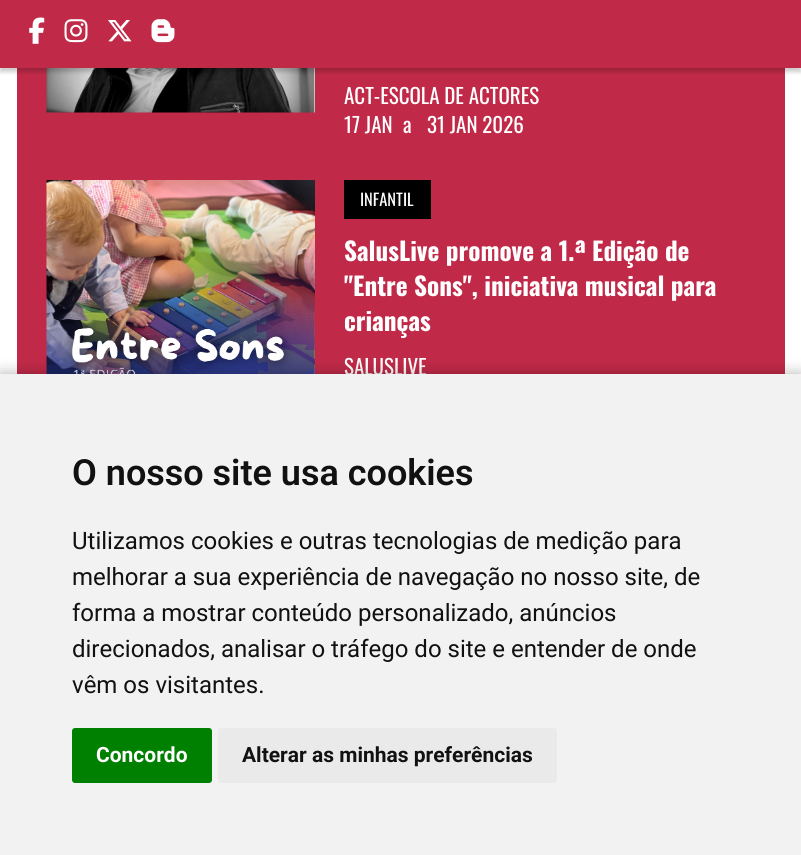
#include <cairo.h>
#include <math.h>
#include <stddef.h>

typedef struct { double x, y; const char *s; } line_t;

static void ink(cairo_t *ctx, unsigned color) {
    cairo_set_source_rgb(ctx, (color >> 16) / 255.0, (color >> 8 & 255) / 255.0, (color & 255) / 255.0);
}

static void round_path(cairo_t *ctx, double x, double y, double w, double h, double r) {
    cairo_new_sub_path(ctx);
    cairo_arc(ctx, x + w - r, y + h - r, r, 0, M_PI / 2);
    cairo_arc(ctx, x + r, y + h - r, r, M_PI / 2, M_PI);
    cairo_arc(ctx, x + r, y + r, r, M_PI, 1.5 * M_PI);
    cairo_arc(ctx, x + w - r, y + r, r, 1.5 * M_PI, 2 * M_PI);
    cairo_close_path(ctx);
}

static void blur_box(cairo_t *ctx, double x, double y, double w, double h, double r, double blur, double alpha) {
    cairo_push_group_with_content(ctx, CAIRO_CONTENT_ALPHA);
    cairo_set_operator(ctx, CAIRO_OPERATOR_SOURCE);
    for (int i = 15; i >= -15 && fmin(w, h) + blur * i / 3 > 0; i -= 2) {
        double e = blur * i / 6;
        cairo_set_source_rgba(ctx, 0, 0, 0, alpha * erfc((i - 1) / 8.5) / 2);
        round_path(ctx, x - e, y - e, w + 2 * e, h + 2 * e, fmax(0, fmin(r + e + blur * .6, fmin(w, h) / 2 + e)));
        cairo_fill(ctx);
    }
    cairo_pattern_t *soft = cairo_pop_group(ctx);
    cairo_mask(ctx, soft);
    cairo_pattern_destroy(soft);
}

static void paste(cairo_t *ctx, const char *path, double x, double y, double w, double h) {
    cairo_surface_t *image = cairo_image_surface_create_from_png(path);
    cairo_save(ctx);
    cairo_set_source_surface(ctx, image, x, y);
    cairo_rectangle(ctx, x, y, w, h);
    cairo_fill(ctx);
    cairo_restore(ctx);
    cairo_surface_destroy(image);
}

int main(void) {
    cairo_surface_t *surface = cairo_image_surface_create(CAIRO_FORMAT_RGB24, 801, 855);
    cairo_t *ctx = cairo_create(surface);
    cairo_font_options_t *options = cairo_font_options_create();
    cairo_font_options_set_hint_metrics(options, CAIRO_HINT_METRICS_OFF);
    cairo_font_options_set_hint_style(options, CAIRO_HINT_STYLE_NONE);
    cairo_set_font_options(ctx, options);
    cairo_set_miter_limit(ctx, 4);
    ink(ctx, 0xFFFFFF);
    cairo_paint(ctx);
    ink(ctx, 0xC02A48);
    cairo_rectangle(ctx, 17, 68, 768, 306);
    cairo_fill(ctx);
    paste(ctx, "media/5.png", 46, 68, 269, 45);
    ink(ctx, 0x000000);
    blur_box(ctx, 0, 5, 801, 67, 0, 2, 0.2);
    ink(ctx, 0xC02A48);
    cairo_rectangle(ctx, 0, 0, 801, 68);
    cairo_fill(ctx);
    paste(ctx, "media/1.png", 29, 17, 16, 27);
    paste(ctx, "media/2.png", 64, 19, 24, 24);
    paste(ctx, "media/3.png", 108, 20, 24, 22);
    paste(ctx, "media/4.png", 151, 19, 24, 24);
    cairo_select_font_face(ctx, "Oswald", CAIRO_FONT_SLANT_NORMAL, CAIRO_FONT_WEIGHT_NORMAL);
    cairo_set_font_size(ctx, 21);
    ink(ctx, 0xFFFFFF);
    {
        static const line_t items[] = {
            {344, 104, "ACT-ESCOLA DE ACTORES"},
            {344, 133, "17 JAN"},
            {403, 133, "a"},
            {427, 133, "31 JAN 2026"},
        };
        for (size_t i = 0; i < sizeof items / sizeof *items; i++) {
            cairo_move_to(ctx, items[i].x, items[i].y);
            cairo_show_text(ctx, items[i].s);
        }
    }
    paste(ctx, "media/6.png", 46, 180, 269, 194);
    ink(ctx, 0x000000);
    cairo_rectangle(ctx, 344, 180, 87, 39);
    cairo_fill(ctx);
    cairo_set_font_size(ctx, 16.5);
    ink(ctx, 0xFFFFFF);
    cairo_move_to(ctx, 360, 206);
    cairo_show_text(ctx, "INFANTIL");
    cairo_select_font_face(ctx, "Oswald", CAIRO_FONT_SLANT_NORMAL, CAIRO_FONT_WEIGHT_BOLD);
    cairo_set_font_size(ctx, 25.25);
    {
        static const line_t items[] = {
            {344, 261, "SalusLive promove a 1.ª Edição de"},
            {344, 296, "\"Entre Sons\", iniciativa musical para"},
            {344, 331, "crianças"},
        };
        for (size_t i = 0; i < sizeof items / sizeof *items; i++) {
            cairo_move_to(ctx, items[i].x, items[i].y);
            cairo_show_text(ctx, items[i].s);
        }
    }
    cairo_select_font_face(ctx, "Oswald", CAIRO_FONT_SLANT_NORMAL, CAIRO_FONT_WEIGHT_NORMAL);
    cairo_set_font_size(ctx, 21);
    cairo_move_to(ctx, 344, 375);
    cairo_show_text(ctx, "SALUSLIVE");
    ink(ctx, 0x000000);
    blur_box(ctx, 0, 374, 801, 481, 0, 7.5, 0.3);
    ink(ctx, 0xF2F2F2);
    cairo_rectangle(ctx, 0, 374, 801, 481);
    cairo_fill(ctx);
    cairo_select_font_face(ctx, "Roboto SemiBold", CAIRO_FONT_SLANT_NORMAL, CAIRO_FONT_WEIGHT_NORMAL);
    cairo_set_font_size(ctx, 36);
    ink(ctx, 0x111111);
    cairo_move_to(ctx, 72, 485);
    cairo_show_text(ctx, "O nosso site usa cookies");
    cairo_select_font_face(ctx, "Roboto", CAIRO_FONT_SLANT_NORMAL, CAIRO_FONT_WEIGHT_NORMAL);
    cairo_set_font_size(ctx, 24);
    {
        static const line_t items[] = {
            {72, 549, "Utilizamos cookies e outras tecnologias de medição para"},
            {72, 585, "melhorar a sua experiência de navegação no nosso site, de"},
            {72, 621, "forma a mostrar conteúdo personalizado, anúncios"},
            {72, 657, "direcionados, analisar o tráfego do site e entender de onde"},
            {72, 693, "vêm os visitantes."},
        };
        for (size_t i = 0; i < sizeof items / sizeof *items; i++) {
            cairo_move_to(ctx, items[i].x, items[i].y);
            cairo_show_text(ctx, items[i].s);
        }
    }
    ink(ctx, 0x008000);
    round_path(ctx, 72, 728, 140, 55, 3);
    cairo_fill(ctx);
    cairo_select_font_face(ctx, "Roboto", CAIRO_FONT_SLANT_NORMAL, CAIRO_FONT_WEIGHT_BOLD);
    cairo_set_font_size(ctx, 21);
    ink(ctx, 0xFFFFFF);
    cairo_move_to(ctx, 96, 762);
    cairo_show_text(ctx, "Concordo");
    ink(ctx, 0xEAEAEA);
    round_path(ctx, 218, 728, 339, 55, 3);
    cairo_fill(ctx);
    ink(ctx, 0x111111);
    cairo_move_to(ctx, 242, 762);
    cairo_show_text(ctx, "Alterar as minhas preferências");
    cairo_surface_write_to_png(surface, "image.png");
    cairo_font_options_destroy(options);
    cairo_destroy(ctx);
    cairo_surface_destroy(surface);
    return 0;
}
